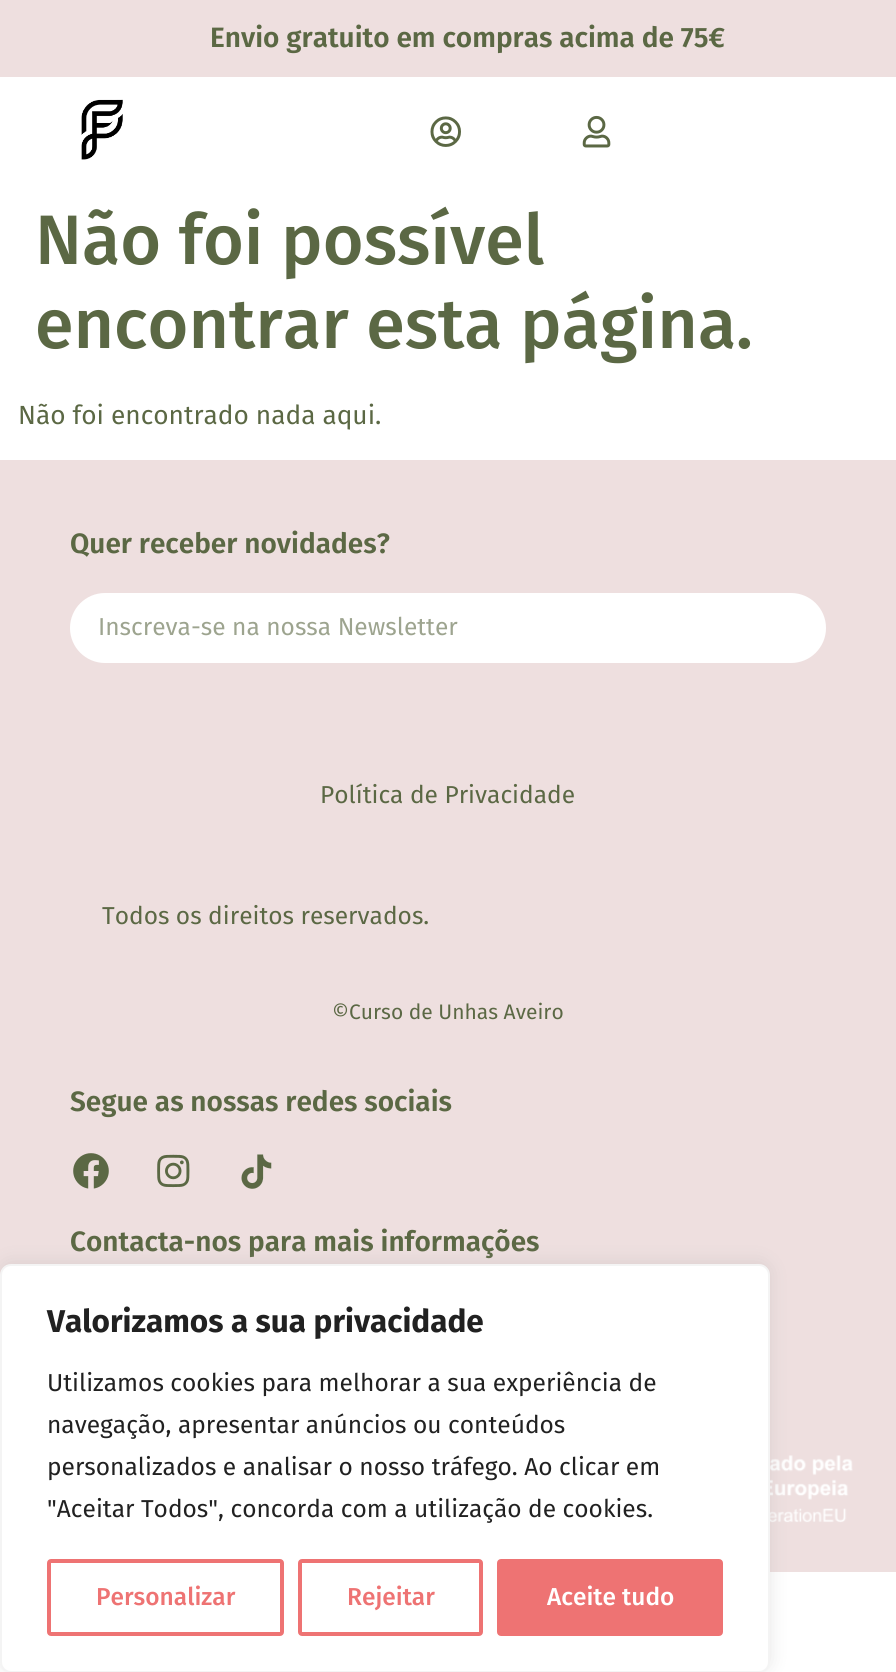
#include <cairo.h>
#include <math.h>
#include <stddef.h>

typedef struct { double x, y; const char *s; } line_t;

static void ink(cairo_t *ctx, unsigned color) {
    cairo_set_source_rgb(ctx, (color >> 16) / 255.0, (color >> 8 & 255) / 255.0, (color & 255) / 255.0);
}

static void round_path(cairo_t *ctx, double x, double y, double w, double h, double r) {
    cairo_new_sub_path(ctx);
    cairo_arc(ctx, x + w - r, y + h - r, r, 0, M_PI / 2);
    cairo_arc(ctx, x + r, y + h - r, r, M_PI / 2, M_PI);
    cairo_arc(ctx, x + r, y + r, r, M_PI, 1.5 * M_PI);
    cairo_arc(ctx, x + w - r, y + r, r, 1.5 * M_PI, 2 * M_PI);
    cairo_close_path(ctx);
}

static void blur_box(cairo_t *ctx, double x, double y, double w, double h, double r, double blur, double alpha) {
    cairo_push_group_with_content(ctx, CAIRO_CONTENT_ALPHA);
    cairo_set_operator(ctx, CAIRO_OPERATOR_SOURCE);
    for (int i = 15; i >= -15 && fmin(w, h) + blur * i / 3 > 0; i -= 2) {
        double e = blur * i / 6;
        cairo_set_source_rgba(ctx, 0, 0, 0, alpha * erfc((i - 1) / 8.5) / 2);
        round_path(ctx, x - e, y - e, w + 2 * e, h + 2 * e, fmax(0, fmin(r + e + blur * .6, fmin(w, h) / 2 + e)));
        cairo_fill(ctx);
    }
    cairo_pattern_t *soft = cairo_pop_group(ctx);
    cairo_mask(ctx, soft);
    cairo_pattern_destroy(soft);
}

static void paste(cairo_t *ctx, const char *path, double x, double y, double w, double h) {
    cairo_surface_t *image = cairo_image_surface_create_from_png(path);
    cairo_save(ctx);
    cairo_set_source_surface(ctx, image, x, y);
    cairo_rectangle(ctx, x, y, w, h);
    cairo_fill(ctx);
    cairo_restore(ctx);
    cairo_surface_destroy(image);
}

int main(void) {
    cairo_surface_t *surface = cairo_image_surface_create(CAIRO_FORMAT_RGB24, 896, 1672);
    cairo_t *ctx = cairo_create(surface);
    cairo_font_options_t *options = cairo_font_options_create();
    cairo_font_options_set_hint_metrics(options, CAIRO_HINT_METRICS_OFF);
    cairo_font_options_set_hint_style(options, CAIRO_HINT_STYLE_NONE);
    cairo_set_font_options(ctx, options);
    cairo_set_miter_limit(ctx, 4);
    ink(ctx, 0xFFFFFF);
    cairo_paint(ctx);
    ink(ctx, 0xEEDFDF);
    cairo_rectangle(ctx, 0, 0, 896, 77);
    cairo_fill(ctx);
    cairo_select_font_face(ctx, "Fira Sans SemiBold", CAIRO_FONT_SLANT_NORMAL, CAIRO_FONT_WEIGHT_NORMAL);
    cairo_set_font_size(ctx, 28);
    ink(ctx, 0x5B6844);
    cairo_move_to(ctx, 210, 47);
    cairo_show_text(ctx, "Envio gratuito em compras acima de 75€");
    paste(ctx, "media/1.png", 81, 99, 42, 61);
    paste(ctx, "media/2.png", 430, 116, 31, 31);
    paste(ctx, "media/3.png", 582, 115, 29, 33);
    cairo_select_font_face(ctx, "Fira Sans Medium", CAIRO_FONT_SLANT_NORMAL, CAIRO_FONT_WEIGHT_NORMAL);
    cairo_set_font_size(ctx, 70);
    cairo_move_to(ctx, 35, 264);
    cairo_show_text(ctx, "Não foi possível");
    cairo_move_to(ctx, 35, 348);
    cairo_show_text(ctx, "encontrar esta página.");
    cairo_select_font_face(ctx, "Fira Sans", CAIRO_FONT_SLANT_NORMAL, CAIRO_FONT_WEIGHT_NORMAL);
    cairo_set_font_size(ctx, 26.25);
    cairo_move_to(ctx, 18, 424);
    cairo_show_text(ctx, "Não foi encontrado nada aqui.");
    ink(ctx, 0xEEDFDF);
    cairo_rectangle(ctx, 0, 460, 896, 949);
    cairo_fill(ctx);
    cairo_select_font_face(ctx, "Fira Sans SemiBold", CAIRO_FONT_SLANT_NORMAL, CAIRO_FONT_WEIGHT_NORMAL);
    cairo_set_font_size(ctx, 28);
    ink(ctx, 0x5B6844);
    cairo_move_to(ctx, 70, 553);
    cairo_show_text(ctx, "Quer receber novidades?");
    ink(ctx, 0xFFFFFF);
    round_path(ctx, 70, 593, 756, 70, 35);
    cairo_fill(ctx);
    cairo_select_font_face(ctx, "Fira Sans", CAIRO_FONT_SLANT_NORMAL, CAIRO_FONT_WEIGHT_NORMAL);
    cairo_set_font_size(ctx, 24.5);
    ink(ctx, 0x9DA48F);
    cairo_move_to(ctx, 98, 635);
    cairo_show_text(ctx, "Inscreva-se na nossa Newsletter");
    ink(ctx, 0x5B6844);
    cairo_move_to(ctx, 320, 803);
    cairo_show_text(ctx, "Política de Privacidade");
    cairo_move_to(ctx, 102, 924);
    cairo_show_text(ctx, "Todos os direitos reservados.");
    cairo_set_font_size(ctx, 21);
    cairo_move_to(ctx, 332, 1019);
    cairo_show_text(ctx, "©Curso de Unhas Aveiro");
    cairo_select_font_face(ctx, "Fira Sans SemiBold", CAIRO_FONT_SLANT_NORMAL, CAIRO_FONT_WEIGHT_NORMAL);
    cairo_set_font_size(ctx, 28);
    cairo_move_to(ctx, 70, 1111);
    cairo_show_text(ctx, "Segue as nossas redes sociais");
    paste(ctx, "media/4.png", 73, 1153, 36, 36);
    paste(ctx, "media/5.png", 157, 1154, 33, 34);
    paste(ctx, "media/6.png", 241, 1154, 31, 35);
    cairo_move_to(ctx, 70, 1251);
    cairo_show_text(ctx, "Contacta-nos para mais informações");
    ink(ctx, 0xEEDFDF);
    cairo_rectangle(ctx, 770, 1409, 126, 163);
    cairo_fill(ctx);
    paste(ctx, "media/7.png", 770, 1455, 83, 68);
    ink(ctx, 0xACABAB);
    blur_box(ctx, 0, 1262, 770, 409, 11, 9, 0.3);
    ink(ctx, 0xFFFFFF);
    round_path(ctx, 1, 1265, 768, 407, 10);
    cairo_fill_preserve(ctx);
    ink(ctx, 0xF4F4F4);
    cairo_stroke(ctx);
    cairo_select_font_face(ctx, "Fira Sans", CAIRO_FONT_SLANT_NORMAL, CAIRO_FONT_WEIGHT_BOLD);
    cairo_set_font_size(ctx, 31.5);
    ink(ctx, 0x212121);
    cairo_move_to(ctx, 47, 1332);
    cairo_show_text(ctx, "Valorizamos a sua privacidade");
    cairo_select_font_face(ctx, "Fira Sans", CAIRO_FONT_SLANT_NORMAL, CAIRO_FONT_WEIGHT_NORMAL);
    cairo_set_font_size(ctx, 24.5);
    {
        static const line_t items[] = {
            {47, 1391, "Utilizamos cookies para melhorar a sua experiência de"},
            {47, 1433, "navegação, apresentar anúncios ou conteúdos"},
            {47, 1475, "personalizados e analisar o nosso tráfego. Ao clicar em"},
            {47, 1517, "\"Aceitar Todos\", concorda com a utilização de cookies."},
        };
        for (size_t i = 0; i < sizeof items / sizeof *items; i++) {
            cairo_move_to(ctx, items[i].x, items[i].y);
            cairo_show_text(ctx, items[i].s);
        }
    }
    round_path(ctx, 49, 1561, 233, 73, 2);
    ink(ctx, 0xEE7373);
    cairo_set_line_width(ctx, 4);
    cairo_stroke(ctx);
    cairo_select_font_face(ctx, "Fira Sans Medium", CAIRO_FONT_SLANT_NORMAL, CAIRO_FONT_WEIGHT_NORMAL);
    cairo_move_to(ctx, 96, 1605);
    cairo_show_text(ctx, "Personalizar");
    round_path(ctx, 300, 1561, 181, 73, 2);
    cairo_stroke(ctx);
    cairo_move_to(ctx, 347, 1605);
    cairo_show_text(ctx, "Rejeitar");
    round_path(ctx, 499, 1561, 222, 73, 2);
    cairo_fill_preserve(ctx);
    cairo_stroke(ctx);
    ink(ctx, 0xFFFFFF);
    cairo_move_to(ctx, 547, 1605);
    cairo_show_text(ctx, "Aceite tudo");
    cairo_surface_write_to_png(surface, "image.png");
    cairo_font_options_destroy(options);
    cairo_destroy(ctx);
    cairo_surface_destroy(surface);
    return 0;
}
